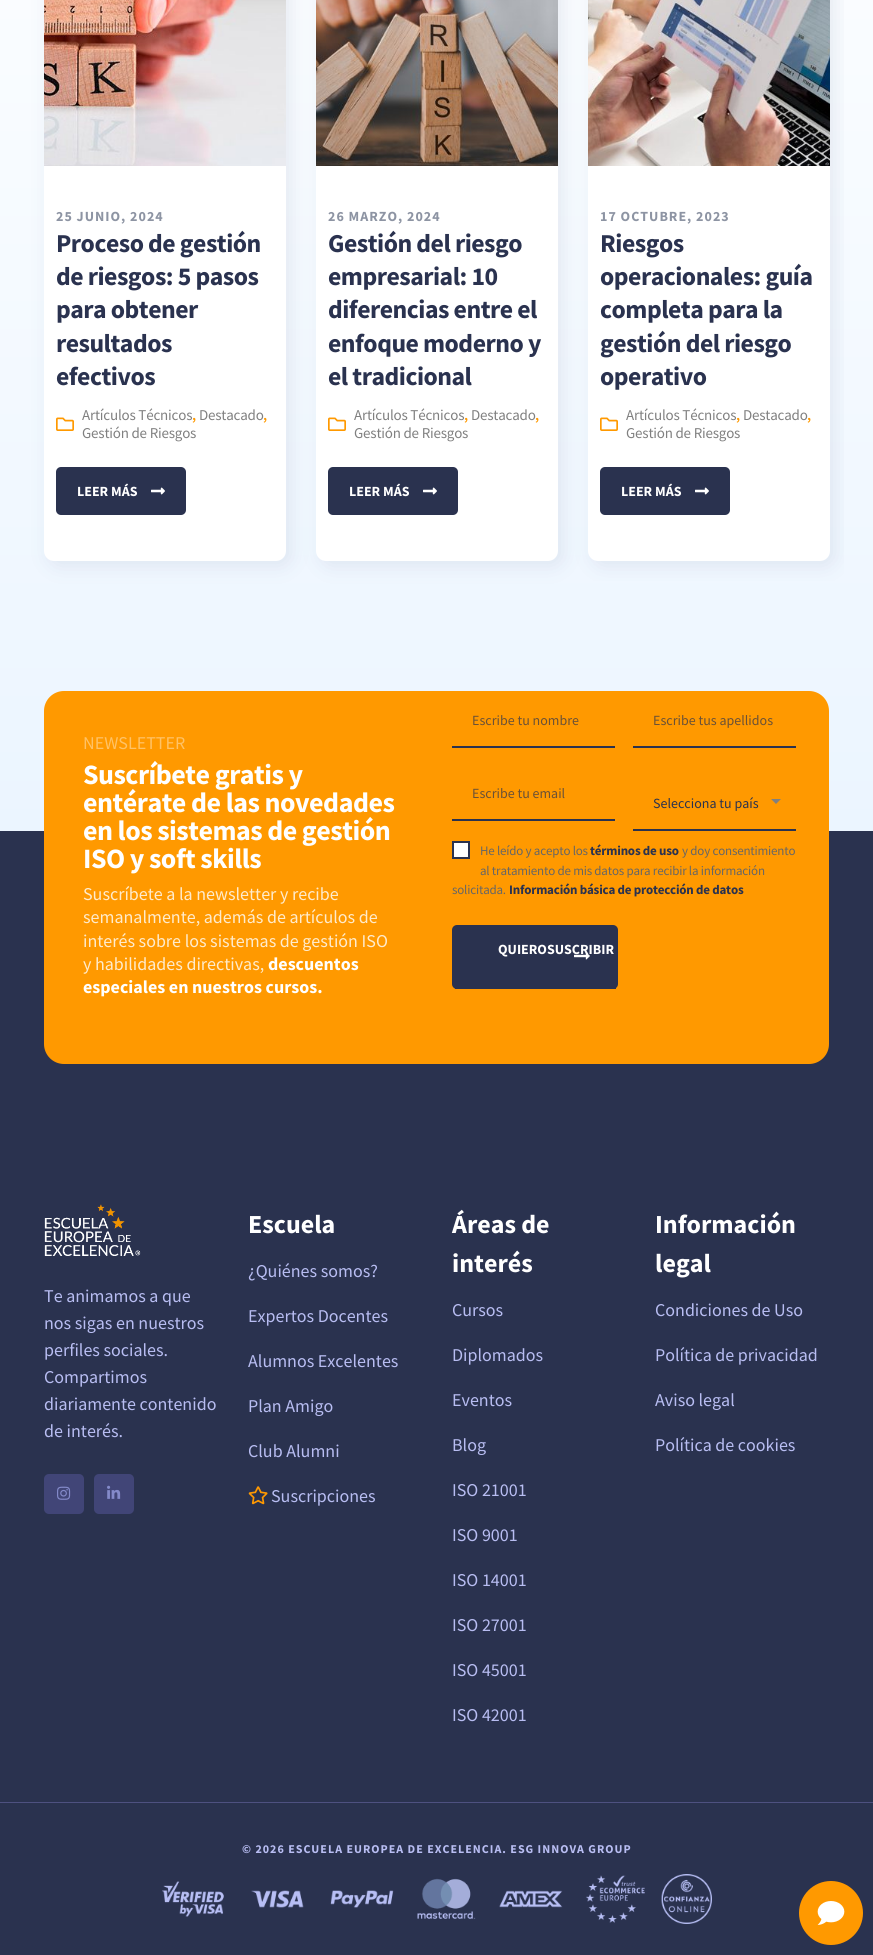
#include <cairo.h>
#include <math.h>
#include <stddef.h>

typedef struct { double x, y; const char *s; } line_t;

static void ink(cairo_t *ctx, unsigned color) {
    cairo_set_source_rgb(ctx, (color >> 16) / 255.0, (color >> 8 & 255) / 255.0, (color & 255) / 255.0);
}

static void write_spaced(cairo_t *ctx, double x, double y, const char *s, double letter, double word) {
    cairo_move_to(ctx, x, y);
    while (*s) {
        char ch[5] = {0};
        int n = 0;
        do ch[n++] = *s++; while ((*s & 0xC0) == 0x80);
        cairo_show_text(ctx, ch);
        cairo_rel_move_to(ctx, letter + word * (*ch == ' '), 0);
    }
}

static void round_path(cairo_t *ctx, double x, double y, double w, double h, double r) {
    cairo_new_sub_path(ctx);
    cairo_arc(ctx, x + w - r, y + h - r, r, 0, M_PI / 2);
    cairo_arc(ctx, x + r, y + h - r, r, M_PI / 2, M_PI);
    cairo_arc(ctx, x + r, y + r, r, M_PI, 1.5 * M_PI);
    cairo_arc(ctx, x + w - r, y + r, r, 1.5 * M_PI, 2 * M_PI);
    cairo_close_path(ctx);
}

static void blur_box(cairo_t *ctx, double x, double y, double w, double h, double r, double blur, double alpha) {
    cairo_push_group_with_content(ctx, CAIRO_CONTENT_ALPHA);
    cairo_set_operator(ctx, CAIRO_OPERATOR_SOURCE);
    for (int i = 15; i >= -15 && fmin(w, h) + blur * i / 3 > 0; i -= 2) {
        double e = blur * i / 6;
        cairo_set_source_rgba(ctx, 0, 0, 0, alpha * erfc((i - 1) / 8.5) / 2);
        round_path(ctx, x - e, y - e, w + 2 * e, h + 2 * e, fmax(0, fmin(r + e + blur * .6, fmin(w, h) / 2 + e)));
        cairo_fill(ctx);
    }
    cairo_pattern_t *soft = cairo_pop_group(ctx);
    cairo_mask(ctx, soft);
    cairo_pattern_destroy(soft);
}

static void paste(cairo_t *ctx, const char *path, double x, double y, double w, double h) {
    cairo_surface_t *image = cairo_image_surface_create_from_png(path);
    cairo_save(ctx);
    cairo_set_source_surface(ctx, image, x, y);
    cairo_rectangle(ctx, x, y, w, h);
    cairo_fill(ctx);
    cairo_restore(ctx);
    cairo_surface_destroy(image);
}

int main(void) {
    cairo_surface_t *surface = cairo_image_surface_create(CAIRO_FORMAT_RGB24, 873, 1955);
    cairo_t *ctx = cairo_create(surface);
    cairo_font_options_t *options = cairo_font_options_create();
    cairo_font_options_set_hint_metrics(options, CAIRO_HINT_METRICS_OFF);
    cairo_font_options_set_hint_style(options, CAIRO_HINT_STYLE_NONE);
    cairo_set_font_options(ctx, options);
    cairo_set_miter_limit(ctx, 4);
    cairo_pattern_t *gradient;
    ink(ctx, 0xFFFFFF);
    cairo_paint(ctx);
    gradient = cairo_pattern_create_linear(437, 831, 437, -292);
    cairo_pattern_add_color_stop_rgba(gradient, 0, 0.922, 0.961, 1, 1);
    cairo_pattern_add_color_stop_rgba(gradient, 1, 1, 1, 1, 1);
    cairo_set_source(ctx, gradient);
    cairo_pattern_destroy(gradient);
    cairo_rectangle(ctx, 0, 0, 873, 831);
    cairo_fill(ctx);
    ink(ctx, 0x314673);
    blur_box(ctx, 49, -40, 242, 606, 10, 10, 0.1);
    paste(ctx, "media/1.png", 44, 0, 242, 166);
    ink(ctx, 0xFFFFFF);
    cairo_new_path(ctx);
    cairo_move_to(ctx, 44, 166);
    cairo_line_to(ctx, 286, 166);
    cairo_line_to(ctx, 286, 551);
    cairo_curve_to(ctx, 286, 556.5, 281.5, 561, 276, 561);
    cairo_line_to(ctx, 54, 561);
    cairo_curve_to(ctx, 48.5, 561, 44, 556.5, 44, 551);
    cairo_close_path(ctx);
    cairo_fill(ctx);
    cairo_select_font_face(ctx, "Source Sans Pro", CAIRO_FONT_SLANT_NORMAL, CAIRO_FONT_WEIGHT_BOLD);
    cairo_set_font_size(ctx, 14);
    ink(ctx, 0x8D94A3);
    write_spaced(ctx, 56, 221, "25 JUNIO, 2024", 1, 0);
    cairo_set_font_size(ctx, 25.75);
    ink(ctx, 0x2A324F);
    {
        static const line_t items[] = {
            {56, 252, "Proceso de gestión"},
            {56, 285, "de riesgos: 5 pasos"},
            {56, 318, "para obtener"},
            {56, 352, "resultados"},
            {56, 385, "efectivos"},
        };
        for (size_t i = 0; i < sizeof items / sizeof *items; i++) {
            write_spaced(ctx, items[i].x, items[i].y, items[i].s, -0.5, 0);
        }
    }
    paste(ctx, "media/2.png", 56, 417, 18, 14);
    cairo_select_font_face(ctx, "Source Sans Pro", CAIRO_FONT_SLANT_NORMAL, CAIRO_FONT_WEIGHT_NORMAL);
    cairo_set_font_size(ctx, 15);
    ink(ctx, 0x808080);
    write_spaced(ctx, 82, 420, "Artículos Técnicos", -0.2, 0);
    cairo_select_font_face(ctx, "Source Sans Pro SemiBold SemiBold", CAIRO_FONT_SLANT_NORMAL, CAIRO_FONT_WEIGHT_NORMAL);
    ink(ctx, 0xFF9900);
    write_spaced(ctx, 192, 420, ",", -0.2, 0);
    cairo_select_font_face(ctx, "Source Sans Pro", CAIRO_FONT_SLANT_NORMAL, CAIRO_FONT_WEIGHT_NORMAL);
    ink(ctx, 0x808080);
    write_spaced(ctx, 199, 420, "Destacado", -0.2, 0);
    cairo_select_font_face(ctx, "Source Sans Pro SemiBold SemiBold", CAIRO_FONT_SLANT_NORMAL, CAIRO_FONT_WEIGHT_NORMAL);
    ink(ctx, 0xFF9900);
    write_spaced(ctx, 263, 420, ",", -0.2, 0);
    cairo_select_font_face(ctx, "Source Sans Pro", CAIRO_FONT_SLANT_NORMAL, CAIRO_FONT_WEIGHT_NORMAL);
    ink(ctx, 0x808080);
    write_spaced(ctx, 82, 438, "Gestión de Riesgos", -0.2, 0);
    ink(ctx, 0x2A324F);
    round_path(ctx, 56, 467, 130, 48, 5);
    cairo_fill(ctx);
    cairo_select_font_face(ctx, "Source Sans Pro", CAIRO_FONT_SLANT_NORMAL, CAIRO_FONT_WEIGHT_BOLD);
    cairo_set_font_size(ctx, 14);
    ink(ctx, 0xFFFFFF);
    cairo_move_to(ctx, 77, 496);
    cairo_show_text(ctx, "LEER MÁS");
    paste(ctx, "media/3.png", 151, 487, 14, 8);
    ink(ctx, 0x314673);
    blur_box(ctx, 321, -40, 242, 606, 10, 10, 0.1);
    paste(ctx, "media/4.png", 316, 0, 242, 166);
    ink(ctx, 0xFFFFFF);
    cairo_new_path(ctx);
    cairo_move_to(ctx, 316, 166);
    cairo_line_to(ctx, 558, 166);
    cairo_line_to(ctx, 558, 551);
    cairo_curve_to(ctx, 558, 556.5, 553.5, 561, 548, 561);
    cairo_line_to(ctx, 326, 561);
    cairo_curve_to(ctx, 320.5, 561, 316, 556.5, 316, 551);
    cairo_close_path(ctx);
    cairo_fill(ctx);
    ink(ctx, 0x8D94A3);
    write_spaced(ctx, 328, 221, "26 MARZO, 2024", 1, 0);
    cairo_set_font_size(ctx, 25.75);
    ink(ctx, 0x2A324F);
    {
        static const line_t items[] = {
            {328, 252, "Gestión del riesgo"},
            {328, 285, "empresarial: 10"},
            {328, 318, "diferencias entre el"},
            {328, 352, "enfoque moderno y"},
            {328, 385, "el tradicional"},
        };
        for (size_t i = 0; i < sizeof items / sizeof *items; i++) {
            write_spaced(ctx, items[i].x, items[i].y, items[i].s, -0.5, 0);
        }
    }
    paste(ctx, "media/2.png", 328, 417, 18, 14);
    cairo_select_font_face(ctx, "Source Sans Pro", CAIRO_FONT_SLANT_NORMAL, CAIRO_FONT_WEIGHT_NORMAL);
    cairo_set_font_size(ctx, 15);
    ink(ctx, 0x808080);
    write_spaced(ctx, 354, 420, "Artículos Técnicos", -0.2, 0);
    cairo_select_font_face(ctx, "Source Sans Pro SemiBold SemiBold", CAIRO_FONT_SLANT_NORMAL, CAIRO_FONT_WEIGHT_NORMAL);
    ink(ctx, 0xFF9900);
    write_spaced(ctx, 464, 420, ",", -0.2, 0);
    cairo_select_font_face(ctx, "Source Sans Pro", CAIRO_FONT_SLANT_NORMAL, CAIRO_FONT_WEIGHT_NORMAL);
    ink(ctx, 0x808080);
    write_spaced(ctx, 471, 420, "Destacado", -0.2, 0);
    cairo_select_font_face(ctx, "Source Sans Pro SemiBold SemiBold", CAIRO_FONT_SLANT_NORMAL, CAIRO_FONT_WEIGHT_NORMAL);
    ink(ctx, 0xFF9900);
    write_spaced(ctx, 535, 420, ",", -0.2, 0);
    cairo_select_font_face(ctx, "Source Sans Pro", CAIRO_FONT_SLANT_NORMAL, CAIRO_FONT_WEIGHT_NORMAL);
    ink(ctx, 0x808080);
    write_spaced(ctx, 354, 438, "Gestión de Riesgos", -0.2, 0);
    ink(ctx, 0x2A324F);
    round_path(ctx, 328, 467, 130, 48, 5);
    cairo_fill(ctx);
    cairo_select_font_face(ctx, "Source Sans Pro", CAIRO_FONT_SLANT_NORMAL, CAIRO_FONT_WEIGHT_BOLD);
    cairo_set_font_size(ctx, 14);
    ink(ctx, 0xFFFFFF);
    cairo_move_to(ctx, 349, 496);
    cairo_show_text(ctx, "LEER MÁS");
    paste(ctx, "media/3.png", 423, 487, 14, 8);
    cairo_save(ctx);
    cairo_rectangle(ctx, 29, 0, 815, 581);
    cairo_clip(ctx);
    ink(ctx, 0x314673);
    blur_box(ctx, 593, -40, 242, 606, 10, 10, 0.1);
    cairo_restore(ctx);
    paste(ctx, "media/5.png", 588, 0, 242, 166);
    cairo_new_path(ctx);
    cairo_move_to(ctx, 588, 166);
    cairo_line_to(ctx, 830, 166);
    cairo_line_to(ctx, 830, 551);
    cairo_curve_to(ctx, 830, 556.5, 825.5, 561, 820, 561);
    cairo_line_to(ctx, 598, 561);
    cairo_curve_to(ctx, 592.5, 561, 588, 556.5, 588, 551);
    cairo_close_path(ctx);
    cairo_fill(ctx);
    ink(ctx, 0x8D94A3);
    write_spaced(ctx, 600, 221, "17 OCTUBRE, 2023", 1, 0);
    cairo_set_font_size(ctx, 25.75);
    ink(ctx, 0x2A324F);
    {
        static const line_t items[] = {
            {600, 252, "Riesgos"},
            {600, 285, "operacionales: guía"},
            {600, 318, "completa para la"},
            {600, 352, "gestión del riesgo"},
            {600, 385, "operativo"},
        };
        for (size_t i = 0; i < sizeof items / sizeof *items; i++) {
            write_spaced(ctx, items[i].x, items[i].y, items[i].s, -0.5, 0);
        }
    }
    paste(ctx, "media/2.png", 600, 417, 18, 14);
    cairo_select_font_face(ctx, "Source Sans Pro", CAIRO_FONT_SLANT_NORMAL, CAIRO_FONT_WEIGHT_NORMAL);
    cairo_set_font_size(ctx, 15);
    ink(ctx, 0x808080);
    write_spaced(ctx, 626, 420, "Artículos Técnicos", -0.2, 0);
    cairo_select_font_face(ctx, "Source Sans Pro SemiBold SemiBold", CAIRO_FONT_SLANT_NORMAL, CAIRO_FONT_WEIGHT_NORMAL);
    ink(ctx, 0xFF9900);
    write_spaced(ctx, 736, 420, ",", -0.2, 0);
    cairo_select_font_face(ctx, "Source Sans Pro", CAIRO_FONT_SLANT_NORMAL, CAIRO_FONT_WEIGHT_NORMAL);
    ink(ctx, 0x808080);
    write_spaced(ctx, 743, 420, "Destacado", -0.2, 0);
    cairo_select_font_face(ctx, "Source Sans Pro SemiBold SemiBold", CAIRO_FONT_SLANT_NORMAL, CAIRO_FONT_WEIGHT_NORMAL);
    ink(ctx, 0xFF9900);
    write_spaced(ctx, 807, 420, ",", -0.2, 0);
    cairo_select_font_face(ctx, "Source Sans Pro", CAIRO_FONT_SLANT_NORMAL, CAIRO_FONT_WEIGHT_NORMAL);
    ink(ctx, 0x808080);
    write_spaced(ctx, 626, 438, "Gestión de Riesgos", -0.2, 0);
    ink(ctx, 0x2A324F);
    round_path(ctx, 600, 467, 130, 48, 5);
    cairo_fill(ctx);
    cairo_select_font_face(ctx, "Source Sans Pro", CAIRO_FONT_SLANT_NORMAL, CAIRO_FONT_WEIGHT_BOLD);
    cairo_set_font_size(ctx, 14);
    ink(ctx, 0xFFFFFF);
    cairo_move_to(ctx, 621, 496);
    cairo_show_text(ctx, "LEER MÁS");
    paste(ctx, "media/3.png", 695, 487, 14, 8);
    ink(ctx, 0x2A324F);
    cairo_rectangle(ctx, 0, 831, 873, 971);
    cairo_fill(ctx);
    ink(ctx, 0xFF9900);
    round_path(ctx, 44, 691, 785, 373, 20);
    cairo_fill(ctx);
    cairo_select_font_face(ctx, "Source Sans Pro", CAIRO_FONT_SLANT_NORMAL, CAIRO_FONT_WEIGHT_NORMAL);
    cairo_set_font_size(ctx, 18);
    ink(ctx, 0xFFC266);
    cairo_move_to(ctx, 83, 749);
    cairo_show_text(ctx, "NEWSLETTER");
    cairo_select_font_face(ctx, "Source Sans Pro", CAIRO_FONT_SLANT_NORMAL, CAIRO_FONT_WEIGHT_BOLD);
    cairo_set_font_size(ctx, 28);
    ink(ctx, 0xFFFFFF);
    {
        static const line_t items[] = {
            {83, 784, "Suscríbete gratis y"},
            {83, 812, "entérate de las novedades"},
            {83, 840, "en los sistemas de gestión"},
            {83, 868, "ISO y soft skills"},
        };
        for (size_t i = 0; i < sizeof items / sizeof *items; i++) {
            write_spaced(ctx, items[i].x, items[i].y, items[i].s, -0.5, 0);
        }
    }
    cairo_select_font_face(ctx, "Source Sans Pro", CAIRO_FONT_SLANT_NORMAL, CAIRO_FONT_WEIGHT_NORMAL);
    cairo_set_font_size(ctx, 18);
    ink(ctx, 0xFFEBCC);
    {
        static const line_t items[] = {
            {83, 900, "Suscríbete a la newsletter y recibe"},
            {83, 923, "semanalmente, además de artículos de"},
            {83, 947, "interés sobre los sistemas de gestión ISO"},
            {83, 970, "y habilidades directivas,"},
        };
        for (size_t i = 0; i < sizeof items / sizeof *items; i++) {
            cairo_move_to(ctx, items[i].x, items[i].y);
            cairo_show_text(ctx, items[i].s);
        }
    }
    cairo_select_font_face(ctx, "Source Sans Pro", CAIRO_FONT_SLANT_NORMAL, CAIRO_FONT_WEIGHT_BOLD);
    ink(ctx, 0xFFFFFF);
    cairo_move_to(ctx, 268, 970);
    cairo_show_text(ctx, "descuentos");
    cairo_move_to(ctx, 83, 993);
    cairo_show_text(ctx, "especiales en nuestros cursos.");
    ink(ctx, 0x2A324F);
    cairo_rectangle(ctx, 452, 746, 163, 2);
    cairo_fill(ctx);
    cairo_select_font_face(ctx, "Source Sans Pro", CAIRO_FONT_SLANT_NORMAL, CAIRO_FONT_WEIGHT_NORMAL);
    cairo_set_font_size(ctx, 14);
    ink(ctx, 0x6A5137);
    cairo_move_to(ctx, 472, 725);
    cairo_show_text(ctx, "Escribe tu nombre");
    ink(ctx, 0x2A324F);
    cairo_rectangle(ctx, 633, 746, 163, 2);
    cairo_fill(ctx);
    ink(ctx, 0x6A5137);
    cairo_move_to(ctx, 653, 725);
    cairo_show_text(ctx, "Escribe tus apellidos");
    ink(ctx, 0x2A324F);
    cairo_rectangle(ctx, 452, 819, 163, 2);
    cairo_fill(ctx);
    ink(ctx, 0x6A5137);
    cairo_move_to(ctx, 472, 798);
    cairo_show_text(ctx, "Escribe tu email");
    ink(ctx, 0x808080);
    cairo_new_path(ctx);
    cairo_move_to(ctx, 771, 799);
    cairo_line_to(ctx, 781, 799);
    cairo_line_to(ctx, 776, 804);
    cairo_close_path(ctx);
    cairo_fill(ctx);
    ink(ctx, 0x2A324F);
    cairo_rectangle(ctx, 633, 829, 163, 2);
    cairo_fill(ctx);
    cairo_move_to(ctx, 653, 808);
    cairo_show_text(ctx, "Selecciona tu país");
    ink(ctx, 0xFFFFFF);
    cairo_rectangle(ctx, 453, 842, 16, 16);
    cairo_fill_preserve(ctx);
    ink(ctx, 0x2A324F);
    cairo_stroke(ctx);
    cairo_set_font_size(ctx, 13);
    ink(ctx, 0x666666);
    write_spaced(ctx, 480, 855, "He leído y acepto los", -0.2, 0);
    cairo_select_font_face(ctx, "Source Sans Pro", CAIRO_FONT_SLANT_NORMAL, CAIRO_FONT_WEIGHT_BOLD);
    ink(ctx, 0x2A324F);
    write_spaced(ctx, 590, 855, "términos de uso", -0.2, 0);
    cairo_select_font_face(ctx, "Source Sans Pro", CAIRO_FONT_SLANT_NORMAL, CAIRO_FONT_WEIGHT_NORMAL);
    ink(ctx, 0x666666);
    {
        static const line_t items[] = {
            {682, 855, "y doy consentimiento"},
            {480, 875, "al tratamiento de mis datos para recibir la información"},
            {452, 894, "solicitada."},
        };
        for (size_t i = 0; i < sizeof items / sizeof *items; i++) {
            write_spaced(ctx, items[i].x, items[i].y, items[i].s, -0.2, 0);
        }
    }
    cairo_select_font_face(ctx, "Source Sans Pro", CAIRO_FONT_SLANT_NORMAL, CAIRO_FONT_WEIGHT_BOLD);
    ink(ctx, 0x2A324F);
    write_spaced(ctx, 509, 894, "Información básica de protección de datos", -0.2, 0);
    round_path(ctx, 452, 925, 166, 64, 5);
    cairo_fill(ctx);
    paste(ctx, "media/6.png", 574, 952, 16, 8);
    cairo_rectangle(ctx, 455, 988, 161, 1);
    cairo_fill(ctx);
    cairo_set_font_size(ctx, 14);
    ink(ctx, 0xFFFFFF);
    cairo_move_to(ctx, 498, 954);
    cairo_show_text(ctx, "QUIEROSUSCRIBIR");
    paste(ctx, "media/7.png", 44, 1204, 97, 52);
    cairo_select_font_face(ctx, "Source Sans Pro", CAIRO_FONT_SLANT_NORMAL, CAIRO_FONT_WEIGHT_NORMAL);
    cairo_set_font_size(ctx, 18);
    ink(ctx, 0xB8BDF2);
    {
        static const line_t items[] = {
            {44, 1302, "Te animamos a que"},
            {44, 1329, "nos sigas en nuestros"},
            {44, 1356, "perfiles sociales."},
            {44, 1383, "Compartimos"},
            {44, 1410, "diariamente contenido"},
            {44, 1437, "de interés."},
        };
        for (size_t i = 0; i < sizeof items / sizeof *items; i++) {
            cairo_move_to(ctx, items[i].x, items[i].y);
            cairo_show_text(ctx, items[i].s);
        }
    }
    ink(ctx, 0x414577);
    round_path(ctx, 44, 1474, 40, 40, 5);
    cairo_fill(ctx);
    paste(ctx, "media/8.png", 57, 1486, 14, 14);
    round_path(ctx, 94, 1474, 40, 40, 5);
    cairo_fill(ctx);
    paste(ctx, "media/9.png", 107, 1485, 14, 14);
    cairo_select_font_face(ctx, "Source Sans Pro", CAIRO_FONT_SLANT_NORMAL, CAIRO_FONT_WEIGHT_BOLD);
    cairo_set_font_size(ctx, 26);
    ink(ctx, 0xFFFFFF);
    cairo_move_to(ctx, 248, 1233);
    cairo_show_text(ctx, "Escuela");
    cairo_select_font_face(ctx, "Source Sans Pro", CAIRO_FONT_SLANT_NORMAL, CAIRO_FONT_WEIGHT_NORMAL);
    cairo_set_font_size(ctx, 18);
    ink(ctx, 0xB8BDF2);
    {
        static const line_t items[] = {
            {248, 1277, "¿Quiénes somos?"},
            {248, 1322, "Expertos Docentes"},
            {248, 1367, "Alumnos Excelentes"},
            {248, 1412, "Plan Amigo"},
            {248, 1457, "Club Alumni"},
        };
        for (size_t i = 0; i < sizeof items / sizeof *items; i++) {
            cairo_move_to(ctx, items[i].x, items[i].y);
            cairo_show_text(ctx, items[i].s);
        }
    }
    paste(ctx, "media/10.png", 248, 1486, 20, 19);
    cairo_move_to(ctx, 271, 1502);
    cairo_show_text(ctx, "Suscripciones");
    cairo_select_font_face(ctx, "Source Sans Pro", CAIRO_FONT_SLANT_NORMAL, CAIRO_FONT_WEIGHT_BOLD);
    cairo_set_font_size(ctx, 26);
    ink(ctx, 0xFFFFFF);
    cairo_move_to(ctx, 452, 1233);
    cairo_show_text(ctx, "Áreas de");
    cairo_move_to(ctx, 452, 1272);
    cairo_show_text(ctx, "interés");
    cairo_select_font_face(ctx, "Source Sans Pro", CAIRO_FONT_SLANT_NORMAL, CAIRO_FONT_WEIGHT_NORMAL);
    cairo_set_font_size(ctx, 18);
    ink(ctx, 0xB8BDF2);
    {
        static const line_t items[] = {
            {452, 1316, "Cursos"},
            {452, 1361, "Diplomados"},
            {452, 1406, "Eventos"},
            {452, 1451, "Blog"},
            {452, 1496, "ISO 21001"},
            {452, 1541, "ISO 9001"},
            {452, 1586, "ISO 14001"},
            {452, 1631, "ISO 27001"},
            {452, 1676, "ISO 45001"},
            {452, 1721, "ISO 42001"},
        };
        for (size_t i = 0; i < sizeof items / sizeof *items; i++) {
            cairo_move_to(ctx, items[i].x, items[i].y);
            cairo_show_text(ctx, items[i].s);
        }
    }
    cairo_select_font_face(ctx, "Source Sans Pro", CAIRO_FONT_SLANT_NORMAL, CAIRO_FONT_WEIGHT_BOLD);
    cairo_set_font_size(ctx, 26);
    ink(ctx, 0xFFFFFF);
    cairo_move_to(ctx, 655, 1233);
    cairo_show_text(ctx, "Información");
    cairo_move_to(ctx, 655, 1272);
    cairo_show_text(ctx, "legal");
    cairo_select_font_face(ctx, "Source Sans Pro", CAIRO_FONT_SLANT_NORMAL, CAIRO_FONT_WEIGHT_NORMAL);
    cairo_set_font_size(ctx, 18);
    ink(ctx, 0xB8BDF2);
    {
        static const line_t items[] = {
            {655, 1316, "Condiciones de Uso"},
            {655, 1361, "Política de privacidad"},
            {655, 1406, "Aviso legal"},
            {655, 1451, "Política de cookies"},
        };
        for (size_t i = 0; i < sizeof items / sizeof *items; i++) {
            cairo_move_to(ctx, items[i].x, items[i].y);
            cairo_show_text(ctx, items[i].s);
        }
    }
    ink(ctx, 0x2A324F);
    cairo_rectangle(ctx, 0, 1803, 873, 152);
    cairo_fill(ctx);
    paste(ctx, "media/11.png", 162, 1874, 550, 50);
    ink(ctx, 0x4E5180);
    cairo_rectangle(ctx, 0, 1802, 873, 1);
    cairo_fill(ctx);
    cairo_select_font_face(ctx, "Source Sans Pro", CAIRO_FONT_SLANT_NORMAL, CAIRO_FONT_WEIGHT_BOLD);
    cairo_set_font_size(ctx, 12);
    ink(ctx, 0xB8BDF2);
    write_spaced(ctx, 242, 1853, "© 2026 ESCUELA EUROPEA DE EXCELENCIA. ESG INNOVA GROUP", 1, 0);
    ink(ctx, 0xFF9900);
    cairo_new_path(ctx);
    cairo_arc(ctx, 831, 1913, 32, 0, 2 * M_PI);
    cairo_fill(ctx);
    paste(ctx, "media/12.png", 817, 1901, 28, 24);
    cairo_surface_write_to_png(surface, "image.png");
    cairo_font_options_destroy(options);
    cairo_destroy(ctx);
    cairo_surface_destroy(surface);
    return 0;
}
